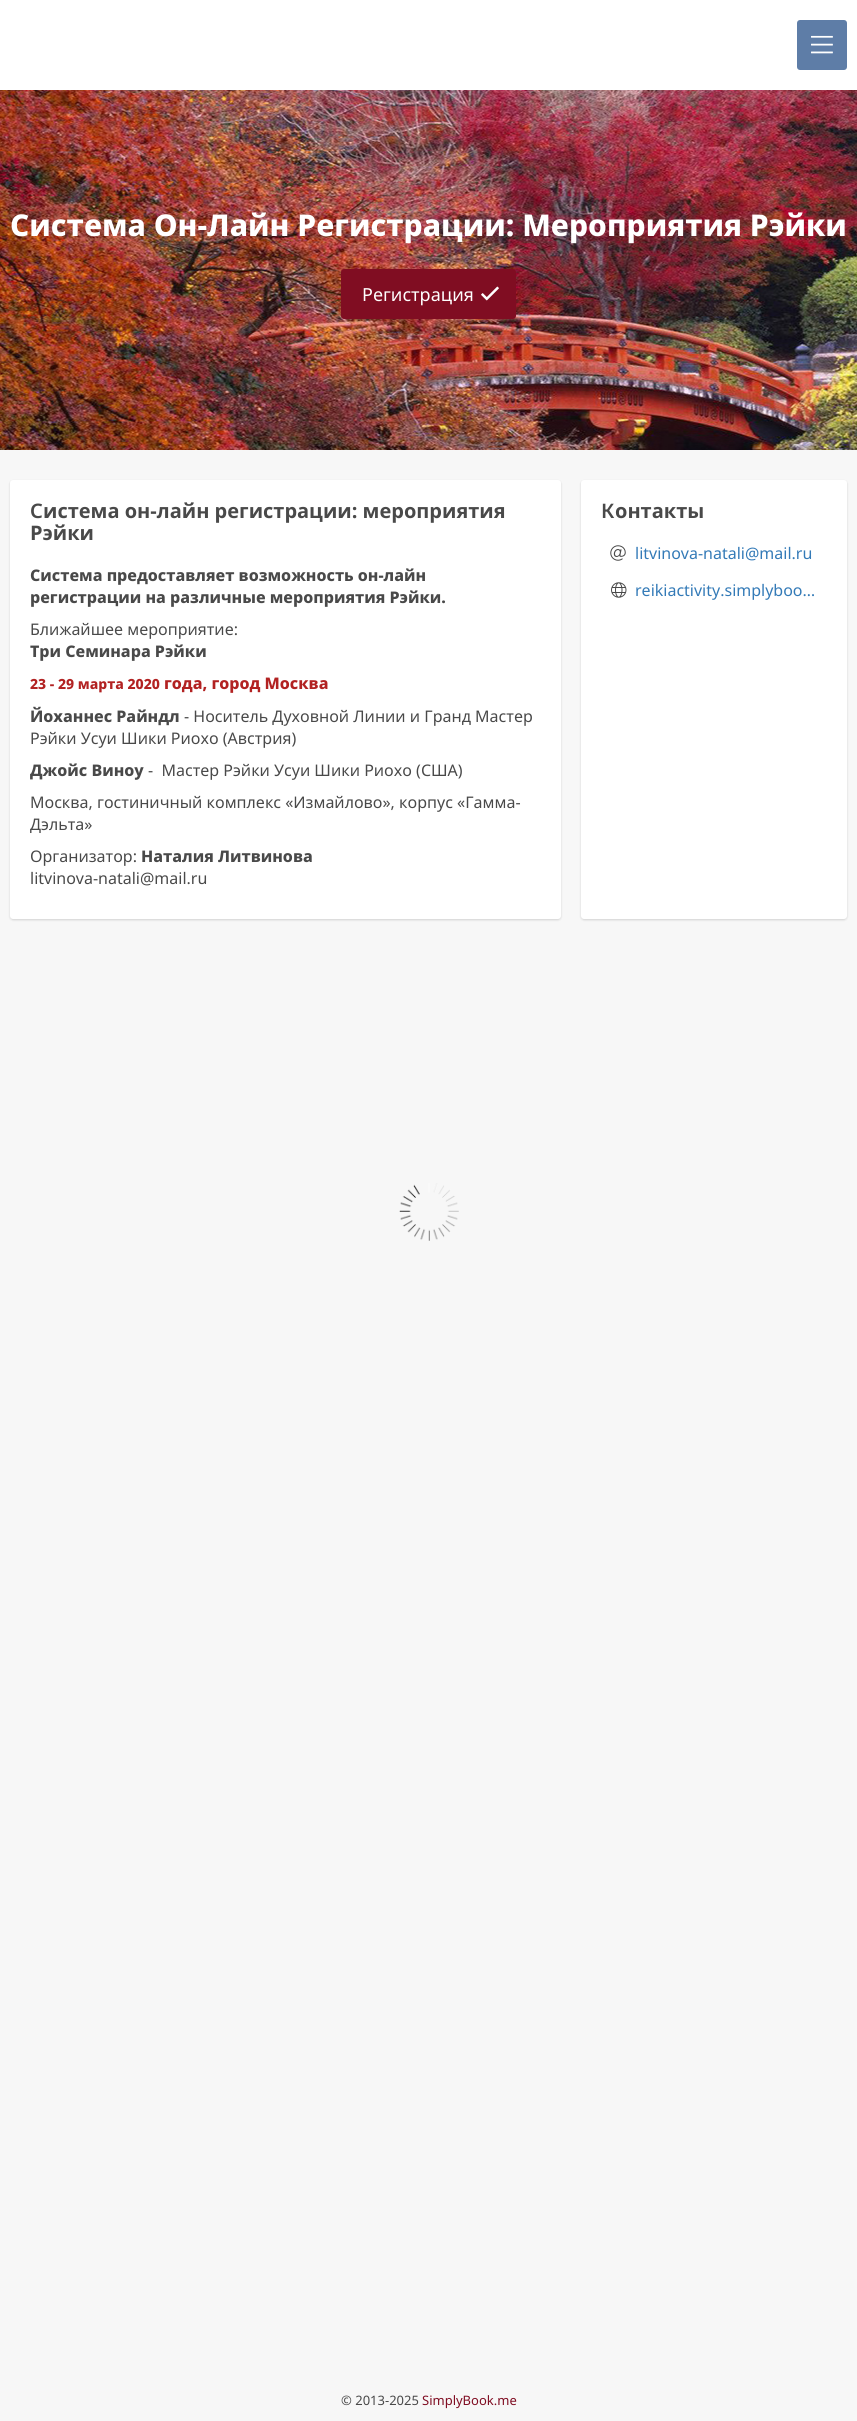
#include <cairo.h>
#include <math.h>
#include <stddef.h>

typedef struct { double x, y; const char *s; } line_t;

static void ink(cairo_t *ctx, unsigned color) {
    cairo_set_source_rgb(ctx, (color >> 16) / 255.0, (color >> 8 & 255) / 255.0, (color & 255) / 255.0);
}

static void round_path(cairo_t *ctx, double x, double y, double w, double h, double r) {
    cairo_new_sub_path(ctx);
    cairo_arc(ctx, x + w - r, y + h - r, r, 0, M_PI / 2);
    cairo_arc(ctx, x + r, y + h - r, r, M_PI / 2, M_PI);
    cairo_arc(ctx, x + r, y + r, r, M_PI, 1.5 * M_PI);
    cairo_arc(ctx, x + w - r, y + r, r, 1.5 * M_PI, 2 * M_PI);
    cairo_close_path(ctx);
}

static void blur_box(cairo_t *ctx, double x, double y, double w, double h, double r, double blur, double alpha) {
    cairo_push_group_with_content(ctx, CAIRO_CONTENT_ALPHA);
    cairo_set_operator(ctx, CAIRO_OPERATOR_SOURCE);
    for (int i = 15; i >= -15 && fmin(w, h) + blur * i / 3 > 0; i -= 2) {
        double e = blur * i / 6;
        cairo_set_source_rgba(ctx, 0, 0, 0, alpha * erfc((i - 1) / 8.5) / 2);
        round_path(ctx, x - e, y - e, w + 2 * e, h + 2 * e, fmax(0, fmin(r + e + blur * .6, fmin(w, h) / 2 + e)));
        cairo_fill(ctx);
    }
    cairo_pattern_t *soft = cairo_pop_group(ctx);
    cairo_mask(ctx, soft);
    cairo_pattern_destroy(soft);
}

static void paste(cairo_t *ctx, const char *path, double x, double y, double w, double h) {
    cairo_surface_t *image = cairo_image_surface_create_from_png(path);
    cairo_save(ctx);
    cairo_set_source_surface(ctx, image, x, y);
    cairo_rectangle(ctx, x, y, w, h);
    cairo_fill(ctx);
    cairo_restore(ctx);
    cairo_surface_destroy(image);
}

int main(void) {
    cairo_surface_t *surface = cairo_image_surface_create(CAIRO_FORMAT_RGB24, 857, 2421);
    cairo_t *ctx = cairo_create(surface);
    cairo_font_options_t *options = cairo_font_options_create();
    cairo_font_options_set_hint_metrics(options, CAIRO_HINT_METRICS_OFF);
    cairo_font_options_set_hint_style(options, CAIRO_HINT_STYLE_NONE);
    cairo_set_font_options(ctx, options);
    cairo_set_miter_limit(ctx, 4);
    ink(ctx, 0xF7F7F7);
    cairo_paint(ctx);
    ink(ctx, 0xFFFFFF);
    cairo_rectangle(ctx, 0, 0, 857, 90);
    cairo_fill(ctx);
    ink(ctx, 0x5E7DA7);
    round_path(ctx, 797, 20, 50, 50, 3);
    cairo_fill(ctx);
    paste(ctx, "media/1.png", 811, 35, 22, 19);
    paste(ctx, "media/2.png", 0, 90, 857, 360);
    cairo_select_font_face(ctx, "Noto Sans ExtraBold", CAIRO_FONT_SLANT_NORMAL, CAIRO_FONT_WEIGHT_NORMAL);
    cairo_set_font_size(ctx, 30);
    ink(ctx, 0xFFFFFF);
    cairo_move_to(ctx, 10, 236);
    cairo_show_text(ctx, "Система Он-Лайн Регистрации: Мероприятия Рэйки");
    ink(ctx, 0x800D22);
    round_path(ctx, 341, 269, 175, 50, 3);
    cairo_fill(ctx);
    cairo_select_font_face(ctx, "Noto Sans", CAIRO_FONT_SLANT_NORMAL, CAIRO_FONT_WEIGHT_NORMAL);
    cairo_set_font_size(ctx, 18);
    ink(ctx, 0xFFFFFF);
    cairo_move_to(ctx, 362, 301);
    cairo_show_text(ctx, "Регистрация");
    paste(ctx, "media/3.png", 481, 286, 18, 15);
    ink(ctx, 0x000000);
    blur_box(ctx, 10, 481, 551, 439, 3, 1, 0.15);
    ink(ctx, 0xFFFFFF);
    round_path(ctx, 10, 480, 551, 439, 3);
    cairo_fill(ctx);
    cairo_select_font_face(ctx, "Noto Sans SemiBold", CAIRO_FONT_SLANT_NORMAL, CAIRO_FONT_WEIGHT_NORMAL);
    cairo_set_font_size(ctx, 20);
    ink(ctx, 0x494949);
    cairo_move_to(ctx, 30, 518);
    cairo_show_text(ctx, "С");
    cairo_select_font_face(ctx, "Noto Sans", CAIRO_FONT_SLANT_NORMAL, CAIRO_FONT_WEIGHT_BOLD);
    cairo_move_to(ctx, 43, 518);
    cairo_show_text(ctx, "истема он-лайн регистрации: мероприятия");
    cairo_move_to(ctx, 30, 540);
    cairo_show_text(ctx, "Рэйки");
    cairo_select_font_face(ctx, "Noto Sans ExtraBold", CAIRO_FONT_SLANT_NORMAL, CAIRO_FONT_WEIGHT_NORMAL);
    cairo_set_font_size(ctx, 16);
    cairo_move_to(ctx, 30, 581);
    cairo_show_text(ctx, "Система предоставляет возможность он-лайн");
    cairo_move_to(ctx, 30, 603);
    cairo_show_text(ctx, "регистрации на различные мероприятия Рэйки.");
    cairo_select_font_face(ctx, "Noto Sans", CAIRO_FONT_SLANT_NORMAL, CAIRO_FONT_WEIGHT_NORMAL);
    cairo_move_to(ctx, 30, 635);
    cairo_show_text(ctx, "Ближайшее мероприятие:");
    cairo_select_font_face(ctx, "Noto Sans ExtraBold", CAIRO_FONT_SLANT_NORMAL, CAIRO_FONT_WEIGHT_NORMAL);
    cairo_move_to(ctx, 30, 657);
    cairo_show_text(ctx, "Три Семинара Рэйки");
    cairo_set_font_size(ctx, 14);
    ink(ctx, 0xB22222);
    cairo_move_to(ctx, 30, 689);
    cairo_show_text(ctx, "23 - 29 марта 2020");
    cairo_set_font_size(ctx, 16);
    cairo_move_to(ctx, 164, 689);
    cairo_show_text(ctx, "года, город Москва");
    ink(ctx, 0x494949);
    cairo_move_to(ctx, 30, 722);
    cairo_show_text(ctx, "Йоханнес Райндл");
    cairo_select_font_face(ctx, "Noto Sans", CAIRO_FONT_SLANT_NORMAL, CAIRO_FONT_WEIGHT_NORMAL);
    cairo_move_to(ctx, 184, 722);
    cairo_show_text(ctx, "- Носитель Духовной Линии и Гранд Мастер");
    cairo_move_to(ctx, 30, 744);
    cairo_show_text(ctx, "Рэйки Усуи Шики Риохо (Австрия)");
    cairo_select_font_face(ctx, "Noto Sans ExtraBold", CAIRO_FONT_SLANT_NORMAL, CAIRO_FONT_WEIGHT_NORMAL);
    cairo_move_to(ctx, 30, 776);
    cairo_show_text(ctx, "Джойс Виноу");
    cairo_select_font_face(ctx, "Noto Sans", CAIRO_FONT_SLANT_NORMAL, CAIRO_FONT_WEIGHT_NORMAL);
    {
        static const line_t items[] = {
            {148, 776, "-  Мастер Рэйки Усуи Шики Риохо (США)"},
            {30, 808, "Москва, гостиничный комплекс «Измайлово», корпус «Гамма-"},
            {30, 830, "Дэльта»"},
            {30, 862, "Организатор:"},
        };
        for (size_t i = 0; i < sizeof items / sizeof *items; i++) {
            cairo_move_to(ctx, items[i].x, items[i].y);
            cairo_show_text(ctx, items[i].s);
        }
    }
    cairo_select_font_face(ctx, "Noto Sans ExtraBold", CAIRO_FONT_SLANT_NORMAL, CAIRO_FONT_WEIGHT_NORMAL);
    cairo_move_to(ctx, 141, 862);
    cairo_show_text(ctx, "Наталия Литвинова");
    cairo_select_font_face(ctx, "Noto Sans", CAIRO_FONT_SLANT_NORMAL, CAIRO_FONT_WEIGHT_NORMAL);
    cairo_move_to(ctx, 30, 884);
    cairo_show_text(ctx, "litvinova-natali@mail.ru");
    ink(ctx, 0x000000);
    blur_box(ctx, 581, 481, 266, 439, 3, 1, 0.15);
    ink(ctx, 0xFFFFFF);
    round_path(ctx, 581, 480, 266, 439, 3);
    cairo_fill(ctx);
    cairo_select_font_face(ctx, "Noto Sans SemiBold", CAIRO_FONT_SLANT_NORMAL, CAIRO_FONT_WEIGHT_NORMAL);
    cairo_set_font_size(ctx, 20);
    ink(ctx, 0x494949);
    cairo_move_to(ctx, 601, 518);
    cairo_show_text(ctx, "К");
    cairo_select_font_face(ctx, "Noto Sans", CAIRO_FONT_SLANT_NORMAL, CAIRO_FONT_WEIGHT_BOLD);
    cairo_move_to(ctx, 615, 518);
    cairo_show_text(ctx, "онтакты");
    paste(ctx, "media/4.png", 610, 545, 16, 16);
    cairo_select_font_face(ctx, "Noto Sans", CAIRO_FONT_SLANT_NORMAL, CAIRO_FONT_WEIGHT_NORMAL);
    cairo_set_font_size(ctx, 16);
    ink(ctx, 0x337AB7);
    cairo_move_to(ctx, 635, 559);
    cairo_show_text(ctx, "litvinova-natali@mail.ru");
    paste(ctx, "media/5.png", 611, 582, 16, 16);
    cairo_move_to(ctx, 635, 596);
    cairo_show_text(ctx, "reikiactivity.simplyboo…");
    paste(ctx, "media/6.png", 399, 1183, 60, 58);
    cairo_set_font_size(ctx, 13);
    ink(ctx, 0x494949);
    cairo_move_to(ctx, 341, 2405);
    cairo_show_text(ctx, "© 2013-2025");
    ink(ctx, 0x800D22);
    cairo_move_to(ctx, 422, 2405);
    cairo_show_text(ctx, "SimplyBook.me");
    cairo_surface_write_to_png(surface, "image.png");
    cairo_font_options_destroy(options);
    cairo_destroy(ctx);
    cairo_surface_destroy(surface);
    return 0;
}
